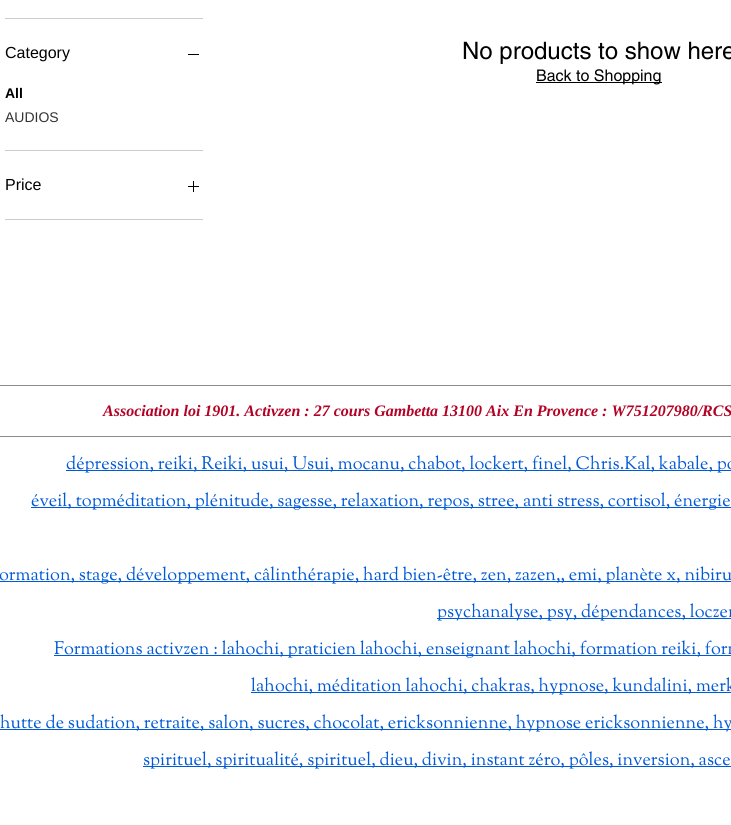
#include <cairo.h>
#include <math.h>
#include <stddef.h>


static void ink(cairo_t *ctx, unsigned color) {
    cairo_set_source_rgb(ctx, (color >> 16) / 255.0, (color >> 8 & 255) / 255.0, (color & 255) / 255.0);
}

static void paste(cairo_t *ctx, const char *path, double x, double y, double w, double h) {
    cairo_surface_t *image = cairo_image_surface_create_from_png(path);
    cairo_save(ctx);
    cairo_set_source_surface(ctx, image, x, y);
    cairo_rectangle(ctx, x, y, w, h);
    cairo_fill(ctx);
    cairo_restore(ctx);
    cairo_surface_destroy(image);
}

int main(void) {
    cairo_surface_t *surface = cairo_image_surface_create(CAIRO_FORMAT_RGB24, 731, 825);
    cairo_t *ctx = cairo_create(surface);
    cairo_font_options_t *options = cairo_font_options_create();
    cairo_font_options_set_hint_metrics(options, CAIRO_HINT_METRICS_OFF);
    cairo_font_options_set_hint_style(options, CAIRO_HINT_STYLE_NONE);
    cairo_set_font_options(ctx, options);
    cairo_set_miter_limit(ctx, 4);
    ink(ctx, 0xFFFFFF);
    cairo_paint(ctx);
    ink(ctx, 0xCCCCCC);
    cairo_rectangle(ctx, 5, 18, 198, 1);
    cairo_fill(ctx);
    cairo_rectangle(ctx, 5, 150, 198, 1);
    cairo_fill(ctx);
    cairo_select_font_face(ctx, "Liberation Sans", CAIRO_FONT_SLANT_NORMAL, CAIRO_FONT_WEIGHT_NORMAL);
    cairo_set_font_size(ctx, 16);
    ink(ctx, 0x000000);
    cairo_move_to(ctx, 5, 58);
    cairo_show_text(ctx, "Category");
    cairo_rectangle(ctx, 188, 54, 11, 1);
    cairo_fill(ctx);
    cairo_select_font_face(ctx, "Liberation Sans", CAIRO_FONT_SLANT_NORMAL, CAIRO_FONT_WEIGHT_BOLD);
    cairo_set_font_size(ctx, 14);
    cairo_move_to(ctx, 5, 98);
    cairo_show_text(ctx, "All");
    cairo_select_font_face(ctx, "Liberation Sans", CAIRO_FONT_SLANT_NORMAL, CAIRO_FONT_WEIGHT_NORMAL);
    ink(ctx, 0x333333);
    cairo_move_to(ctx, 5, 122);
    cairo_show_text(ctx, "AUDIOS");
    ink(ctx, 0xCCCCCC);
    cairo_rectangle(ctx, 5, 219, 198, 1);
    cairo_fill(ctx);
    cairo_set_font_size(ctx, 16);
    ink(ctx, 0x000000);
    cairo_move_to(ctx, 5, 190);
    cairo_show_text(ctx, "Price");
    paste(ctx, "media/1.png", 188, 181, 11, 11);
    cairo_select_font_face(ctx, "helvetica", CAIRO_FONT_SLANT_NORMAL, CAIRO_FONT_WEIGHT_NORMAL);
    cairo_set_font_size(ctx, 24);
    cairo_move_to(ctx, 462, 59);
    cairo_show_text(ctx, "No products to show here");
    cairo_rectangle(ctx, 536, 82, 126, 1);
    cairo_fill(ctx);
    cairo_set_font_size(ctx, 16);
    cairo_move_to(ctx, 536, 81);
    cairo_show_text(ctx, "Back to Shopping");
    ink(ctx, 0x8B8B8B);
    cairo_rectangle(ctx, 0, 385, 731, 1);
    cairo_fill(ctx);
    cairo_select_font_face(ctx, "Liberation Serif", CAIRO_FONT_SLANT_ITALIC, CAIRO_FONT_WEIGHT_BOLD);
    ink(ctx, 0xB30225);
    cairo_move_to(ctx, 103, 416);
    cairo_show_text(ctx, "Association loi 1901. Activzen : 27 cours Gambetta 13100 Aix En Provence : W751207980/RCS");
    ink(ctx, 0x8B8B8B);
    cairo_rectangle(ctx, 0, 436, 731, 1);
    cairo_fill(ctx);
    ink(ctx, 0x0059D7);
    cairo_rectangle(ctx, 66, 470, 665, 1);
    cairo_fill(ctx);
    cairo_select_font_face(ctx, "Sorts Mill Goudy", CAIRO_FONT_SLANT_NORMAL, CAIRO_FONT_WEIGHT_NORMAL);
    cairo_set_font_size(ctx, 18);
    cairo_move_to(ctx, 66, 469);
    cairo_show_text(ctx, "dépression, reiki, Reiki, usui, Usui, mocanu, chabot, lockert, finel, Chris.Kal, kabale, po");
    cairo_rectangle(ctx, 31, 507, 700, 1);
    cairo_fill(ctx);
    cairo_move_to(ctx, 31, 506);
    cairo_show_text(ctx, "éveil, topméditation, plénitude, sagesse, relaxation, repos, stree, anti stress, cortisol, énergie");
    cairo_rectangle(ctx, 0, 581, 731, 1);
    cairo_fill(ctx);
    cairo_move_to(ctx, -1, 580);
    cairo_show_text(ctx, "ormation, stage, développement, câlinthérapie, hard bien-être, zen, zazen,, emi, planète x, nibiru");
    cairo_rectangle(ctx, 437, 618, 294, 1);
    cairo_fill(ctx);
    cairo_move_to(ctx, 437, 617);
    cairo_show_text(ctx, "psychanalyse, psy, dépendances, loczen");
    cairo_rectangle(ctx, 54, 655, 677, 1);
    cairo_fill(ctx);
    cairo_move_to(ctx, 54, 654);
    cairo_show_text(ctx, "Formations activzen : lahochi, praticien lahochi, enseignant lahochi, formation reiki, form");
    cairo_rectangle(ctx, 251, 692, 480, 1);
    cairo_fill(ctx);
    cairo_move_to(ctx, 251, 691);
    cairo_show_text(ctx, "lahochi, méditation lahochi, chakras, hypnose, kundalini, merk");
    cairo_rectangle(ctx, 0, 729, 731, 1);
    cairo_fill(ctx);
    cairo_move_to(ctx, 0, 728);
    cairo_show_text(ctx, "hutte de sudation, retraite, salon, sucres, chocolat, ericksonnienne, hypnose ericksonnienne, hy");
    cairo_rectangle(ctx, 143, 766, 588, 1);
    cairo_fill(ctx);
    cairo_move_to(ctx, 143, 765);
    cairo_show_text(ctx, "spirituel, spiritualité, spirituel, dieu, divin, instant zéro, pôles, inversion, asce");
    cairo_surface_write_to_png(surface, "image.png");
    cairo_font_options_destroy(options);
    cairo_destroy(ctx);
    cairo_surface_destroy(surface);
    return 0;
}
